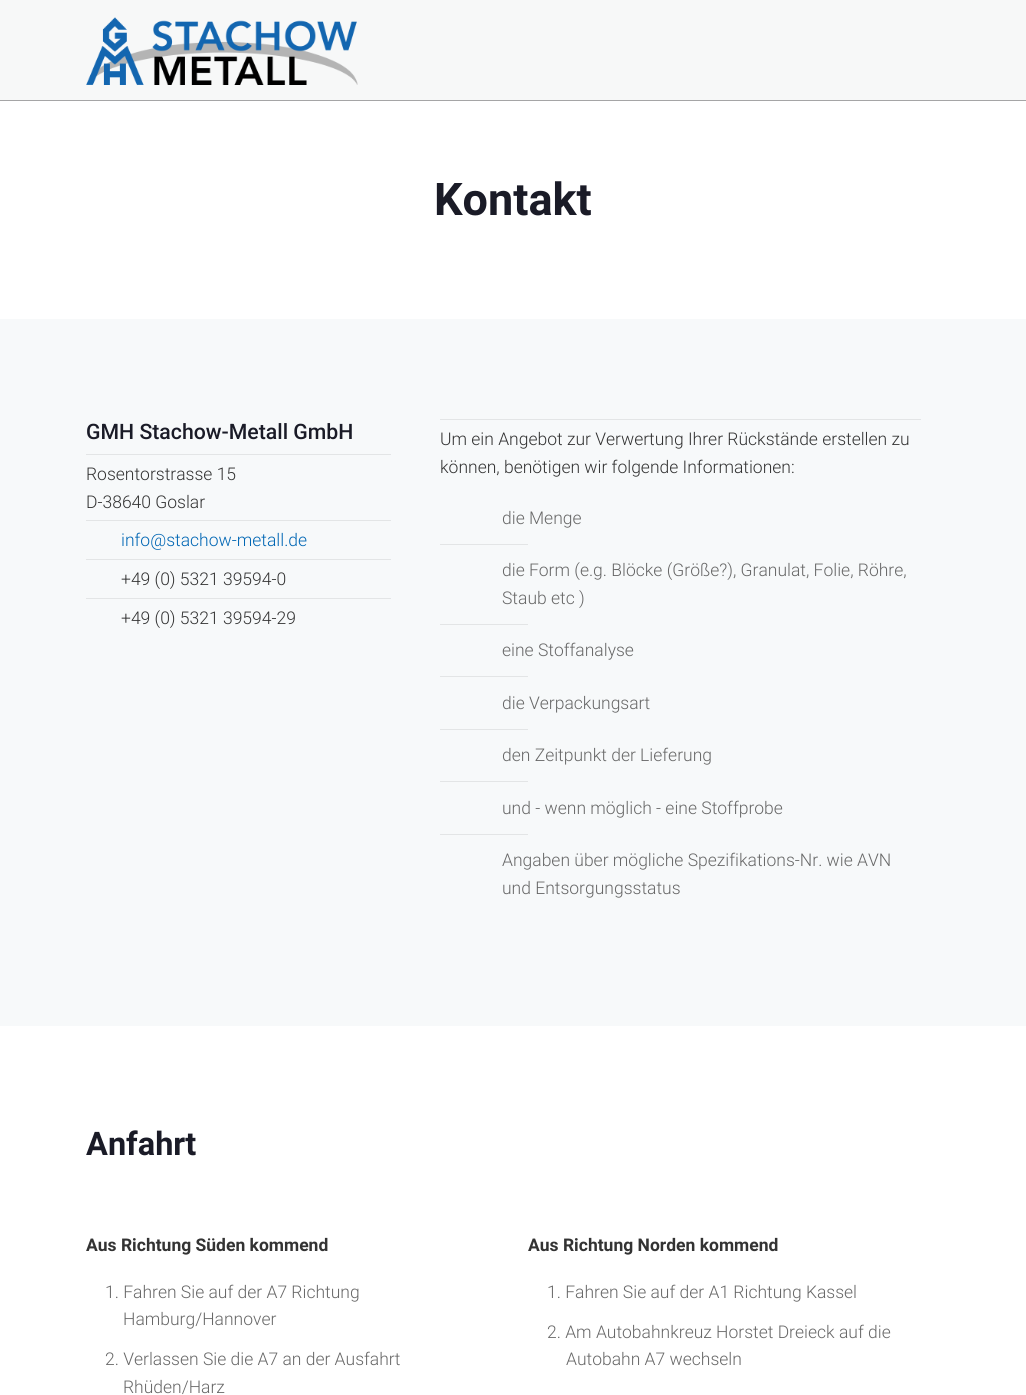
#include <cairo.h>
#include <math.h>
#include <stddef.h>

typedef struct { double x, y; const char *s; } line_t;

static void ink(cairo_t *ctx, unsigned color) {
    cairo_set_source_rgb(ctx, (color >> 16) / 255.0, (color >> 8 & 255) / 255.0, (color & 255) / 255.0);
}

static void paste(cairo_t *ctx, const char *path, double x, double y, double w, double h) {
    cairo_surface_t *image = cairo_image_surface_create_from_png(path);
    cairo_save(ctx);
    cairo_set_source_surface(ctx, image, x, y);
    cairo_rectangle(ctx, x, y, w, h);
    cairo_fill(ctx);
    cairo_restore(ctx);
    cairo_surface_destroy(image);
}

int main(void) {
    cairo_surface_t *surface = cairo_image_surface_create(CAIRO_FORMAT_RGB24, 1026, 1395);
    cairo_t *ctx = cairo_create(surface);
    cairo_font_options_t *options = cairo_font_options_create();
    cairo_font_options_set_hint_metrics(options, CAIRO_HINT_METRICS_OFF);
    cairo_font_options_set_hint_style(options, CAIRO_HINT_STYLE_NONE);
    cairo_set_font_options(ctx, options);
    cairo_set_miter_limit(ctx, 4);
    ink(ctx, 0xFFFFFF);
    cairo_paint(ctx);
    ink(ctx, 0xF7F8F8);
    cairo_rectangle(ctx, 0, 0, 1026, 100);
    cairo_fill(ctx);
    ink(ctx, 0xA5A5A6);
    cairo_rectangle(ctx, 0, 100, 1026, 1);
    cairo_fill(ctx);
    paste(ctx, "media/1.png", 86, 17, 272, 68);
    cairo_select_font_face(ctx, "Roboto", CAIRO_FONT_SLANT_NORMAL, CAIRO_FONT_WEIGHT_BOLD);
    cairo_set_font_size(ctx, 45);
    ink(ctx, 0x1A1B27);
    cairo_move_to(ctx, 434, 215);
    cairo_show_text(ctx, "Kontakt");
    ink(ctx, 0xF7F9FA);
    cairo_rectangle(ctx, 0, 319, 1026, 707);
    cairo_fill(ctx);
    cairo_select_font_face(ctx, "Roboto Medium", CAIRO_FONT_SLANT_NORMAL, CAIRO_FONT_WEIGHT_NORMAL);
    cairo_set_font_size(ctx, 21.25);
    ink(ctx, 0x1A1B27);
    cairo_move_to(ctx, 86, 439);
    cairo_show_text(ctx, "GMH Stachow-Metall GmbH");
    ink(ctx, 0xE3E5E6);
    cairo_rectangle(ctx, 86, 454, 305, 1);
    cairo_fill(ctx);
    cairo_select_font_face(ctx, "Roboto Light", CAIRO_FONT_SLANT_NORMAL, CAIRO_FONT_WEIGHT_NORMAL);
    cairo_set_font_size(ctx, 17.5);
    ink(ctx, 0x333333);
    cairo_move_to(ctx, 86, 480);
    cairo_show_text(ctx, "Rosentorstrasse 15");
    cairo_move_to(ctx, 86, 508);
    cairo_show_text(ctx, "D-38640 Goslar");
    ink(ctx, 0xE3E5E6);
    cairo_rectangle(ctx, 86, 520, 305, 1);
    cairo_fill(ctx);
    ink(ctx, 0x0066B4);
    cairo_move_to(ctx, 121, 546);
    cairo_show_text(ctx, "info@stachow-metall.de");
    ink(ctx, 0xE3E5E6);
    cairo_rectangle(ctx, 86, 559, 305, 1);
    cairo_fill(ctx);
    ink(ctx, 0x333333);
    cairo_move_to(ctx, 121, 585);
    cairo_show_text(ctx, "+49 (0) 5321 39594-0");
    ink(ctx, 0xE3E5E6);
    cairo_rectangle(ctx, 86, 598, 305, 1);
    cairo_fill(ctx);
    ink(ctx, 0x333333);
    cairo_move_to(ctx, 121, 624);
    cairo_show_text(ctx, "+49 (0) 5321 39594-29");
    ink(ctx, 0xE3E5E6);
    cairo_rectangle(ctx, 440, 419, 481, 1);
    cairo_fill(ctx);
    ink(ctx, 0x333333);
    cairo_move_to(ctx, 440, 445);
    cairo_show_text(ctx, "Um ein Angebot zur Verwertung Ihrer Rückstände erstellen zu");
    cairo_move_to(ctx, 440, 473);
    cairo_show_text(ctx, "können, benötigen wir folgende Informationen:");
    ink(ctx, 0x686868);
    cairo_move_to(ctx, 502, 524);
    cairo_show_text(ctx, "die Menge");
    ink(ctx, 0xE3E5E6);
    cairo_rectangle(ctx, 440, 544, 88, 1);
    cairo_fill(ctx);
    ink(ctx, 0x686868);
    cairo_move_to(ctx, 502, 576);
    cairo_show_text(ctx, "die Form (e.g. Blöcke (Größe?), Granulat, Folie, Röhre,");
    cairo_move_to(ctx, 502, 604);
    cairo_show_text(ctx, "Staub etc )");
    ink(ctx, 0xE3E5E6);
    cairo_rectangle(ctx, 440, 624, 88, 1);
    cairo_fill(ctx);
    ink(ctx, 0x686868);
    cairo_move_to(ctx, 502, 656);
    cairo_show_text(ctx, "eine Stoffanalyse");
    ink(ctx, 0xE3E5E6);
    cairo_rectangle(ctx, 440, 676, 88, 1);
    cairo_fill(ctx);
    ink(ctx, 0x686868);
    cairo_move_to(ctx, 502, 709);
    cairo_show_text(ctx, "die Verpackungsart");
    ink(ctx, 0xE3E5E6);
    cairo_rectangle(ctx, 440, 729, 88, 1);
    cairo_fill(ctx);
    ink(ctx, 0x686868);
    cairo_move_to(ctx, 502, 761);
    cairo_show_text(ctx, "den Zeitpunkt der Lieferung");
    ink(ctx, 0xE3E5E6);
    cairo_rectangle(ctx, 440, 781, 88, 1);
    cairo_fill(ctx);
    ink(ctx, 0x686868);
    cairo_move_to(ctx, 502, 814);
    cairo_show_text(ctx, "und - wenn möglich - eine Stoffprobe");
    ink(ctx, 0xE3E5E6);
    cairo_rectangle(ctx, 440, 834, 88, 1);
    cairo_fill(ctx);
    ink(ctx, 0x686868);
    cairo_move_to(ctx, 502, 866);
    cairo_show_text(ctx, "Angaben über mögliche Spezifikations-Nr. wie AVN");
    cairo_move_to(ctx, 502, 894);
    cairo_show_text(ctx, "und Entsorgungsstatus");
    cairo_select_font_face(ctx, "Roboto", CAIRO_FONT_SLANT_NORMAL, CAIRO_FONT_WEIGHT_BOLD);
    cairo_set_font_size(ctx, 32.5);
    ink(ctx, 0x1A1B27);
    cairo_move_to(ctx, 86, 1155);
    cairo_show_text(ctx, "Anfahrt");
    cairo_set_font_size(ctx, 17.5);
    ink(ctx, 0x333333);
    cairo_move_to(ctx, 86, 1251);
    cairo_show_text(ctx, "Aus Richtung Süden kommend");
    cairo_select_font_face(ctx, "Roboto Light", CAIRO_FONT_SLANT_NORMAL, CAIRO_FONT_WEIGHT_NORMAL);
    ink(ctx, 0x686868);
    {
        static const line_t items[] = {
            {105, 1298, "1. Fahren Sie auf der A7 Richtung"},
            {123, 1325, "Hamburg/Hannover"},
            {105, 1365, "2. Verlassen Sie die A7 an der Ausfahrt"},
            {123, 1393, "Rhüden/Harz"},
        };
        for (size_t i = 0; i < sizeof items / sizeof *items; i++) {
            cairo_move_to(ctx, items[i].x, items[i].y);
            cairo_show_text(ctx, items[i].s);
        }
    }
    cairo_select_font_face(ctx, "Roboto", CAIRO_FONT_SLANT_NORMAL, CAIRO_FONT_WEIGHT_BOLD);
    ink(ctx, 0x333333);
    cairo_move_to(ctx, 528, 1251);
    cairo_show_text(ctx, "Aus Richtung Norden kommend");
    cairo_select_font_face(ctx, "Roboto Light", CAIRO_FONT_SLANT_NORMAL, CAIRO_FONT_WEIGHT_NORMAL);
    ink(ctx, 0x686868);
    {
        static const line_t items[] = {
            {547, 1298, "1. Fahren Sie auf der A1 Richtung Kassel"},
            {547, 1338, "2. Am Autobahnkreuz Horstet Dreieck auf die"},
            {566, 1365, "Autobahn A7 wechseln"},
        };
        for (size_t i = 0; i < sizeof items / sizeof *items; i++) {
            cairo_move_to(ctx, items[i].x, items[i].y);
            cairo_show_text(ctx, items[i].s);
        }
    }
    cairo_surface_write_to_png(surface, "image.png");
    cairo_font_options_destroy(options);
    cairo_destroy(ctx);
    cairo_surface_destroy(surface);
    return 0;
}
